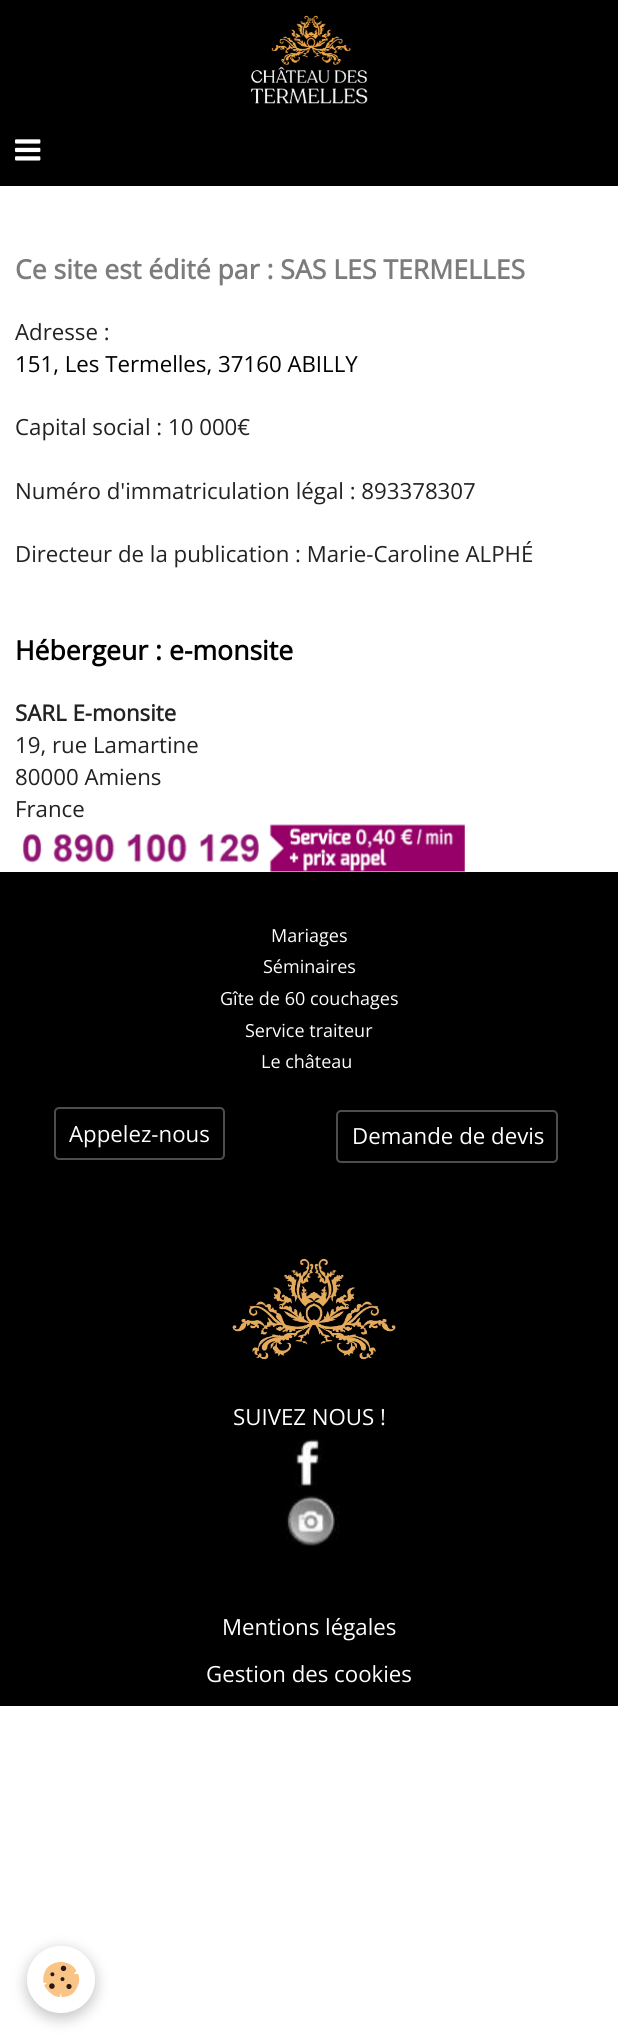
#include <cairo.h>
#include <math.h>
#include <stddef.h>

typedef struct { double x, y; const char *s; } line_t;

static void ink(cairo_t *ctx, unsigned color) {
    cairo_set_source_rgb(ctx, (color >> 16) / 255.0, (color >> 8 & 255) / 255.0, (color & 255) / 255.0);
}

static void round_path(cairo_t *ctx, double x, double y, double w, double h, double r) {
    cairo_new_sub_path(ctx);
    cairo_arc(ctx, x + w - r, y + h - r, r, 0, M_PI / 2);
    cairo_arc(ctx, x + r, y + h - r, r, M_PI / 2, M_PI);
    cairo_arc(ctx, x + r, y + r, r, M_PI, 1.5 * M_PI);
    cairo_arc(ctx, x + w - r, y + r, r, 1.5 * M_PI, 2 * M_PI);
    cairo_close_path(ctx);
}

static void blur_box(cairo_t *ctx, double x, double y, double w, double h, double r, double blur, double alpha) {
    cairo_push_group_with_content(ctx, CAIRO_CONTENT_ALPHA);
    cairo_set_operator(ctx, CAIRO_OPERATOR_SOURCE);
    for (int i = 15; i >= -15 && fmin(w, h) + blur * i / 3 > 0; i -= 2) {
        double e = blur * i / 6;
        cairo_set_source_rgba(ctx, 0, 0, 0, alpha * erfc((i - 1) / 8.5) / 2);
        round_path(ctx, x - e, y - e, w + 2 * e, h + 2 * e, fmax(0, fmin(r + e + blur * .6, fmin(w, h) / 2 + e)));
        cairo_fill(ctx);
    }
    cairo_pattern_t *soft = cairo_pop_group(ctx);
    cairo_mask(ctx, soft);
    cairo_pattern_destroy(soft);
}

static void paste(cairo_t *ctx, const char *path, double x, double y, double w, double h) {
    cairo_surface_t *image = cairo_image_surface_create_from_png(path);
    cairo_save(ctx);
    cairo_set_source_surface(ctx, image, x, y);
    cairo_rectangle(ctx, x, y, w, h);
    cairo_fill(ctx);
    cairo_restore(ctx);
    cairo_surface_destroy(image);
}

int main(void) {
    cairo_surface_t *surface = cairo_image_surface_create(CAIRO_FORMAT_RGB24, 618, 2040);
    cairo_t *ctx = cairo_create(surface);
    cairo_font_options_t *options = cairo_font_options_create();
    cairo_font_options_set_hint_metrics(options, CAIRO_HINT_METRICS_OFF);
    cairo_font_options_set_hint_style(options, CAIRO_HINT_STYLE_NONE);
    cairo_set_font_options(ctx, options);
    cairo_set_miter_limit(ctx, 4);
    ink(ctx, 0xFFFFFF);
    cairo_paint(ctx);
    ink(ctx, 0x000000);
    cairo_rectangle(ctx, 0, 0, 618, 186);
    cairo_fill(ctx);
    paste(ctx, "media/1.png", 250, 15, 118, 89);
    paste(ctx, "media/2.png", 15, 139, 26, 22);
    cairo_select_font_face(ctx, "Open Sans", CAIRO_FONT_SLANT_NORMAL, CAIRO_FONT_WEIGHT_BOLD);
    cairo_set_font_size(ctx, 26.6);
    ink(ctx, 0x7C7C7C);
    cairo_move_to(ctx, 15, 279);
    cairo_show_text(ctx, "Ce site est édité par : SAS LES TERMELLES");
    cairo_select_font_face(ctx, "Open Sans", CAIRO_FONT_SLANT_NORMAL, CAIRO_FONT_WEIGHT_NORMAL);
    cairo_set_font_size(ctx, 22.25);
    ink(ctx, 0x222222);
    cairo_move_to(ctx, 15, 340);
    cairo_show_text(ctx, "Adresse :");
    ink(ctx, 0x000000);
    cairo_move_to(ctx, 15, 372);
    cairo_show_text(ctx, "151, Les Termelles, 37160 ABILLY");
    ink(ctx, 0x222222);
    {
        static const line_t items[] = {
            {15, 435, "Capital social : 10 000€"},
            {15, 499, "Numéro d'immatriculation légal : 893378307"},
            {15, 562, "Directeur de la publication : Marie-Caroline ALPHÉ"},
        };
        for (size_t i = 0; i < sizeof items / sizeof *items; i++) {
            cairo_move_to(ctx, items[i].x, items[i].y);
            cairo_show_text(ctx, items[i].s);
        }
    }
    cairo_select_font_face(ctx, "Open Sans", CAIRO_FONT_SLANT_NORMAL, CAIRO_FONT_WEIGHT_BOLD);
    cairo_set_font_size(ctx, 26.6);
    ink(ctx, 0x000000);
    cairo_move_to(ctx, 15, 660);
    cairo_show_text(ctx, "Hébergeur : e-monsite");
    cairo_set_font_size(ctx, 22.25);
    ink(ctx, 0x222222);
    cairo_move_to(ctx, 15, 721);
    cairo_show_text(ctx, "SARL E-monsite");
    cairo_select_font_face(ctx, "Open Sans", CAIRO_FONT_SLANT_NORMAL, CAIRO_FONT_WEIGHT_NORMAL);
    {
        static const line_t items[] = {
            {15, 753, "19, rue Lamartine"},
            {15, 785, "80000 Amiens"},
            {15, 817, "France"},
        };
        for (size_t i = 0; i < sizeof items / sizeof *items; i++) {
            cairo_move_to(ctx, items[i].x, items[i].y);
            cairo_show_text(ctx, items[i].s);
        }
    }
    paste(ctx, "media/3.png", 22, 824, 443, 48);
    ink(ctx, 0x000000);
    cairo_rectangle(ctx, 0, 872, 618, 834);
    cairo_fill(ctx);
    cairo_set_font_size(ctx, 18);
    ink(ctx, 0xFFFFFF);
    {
        static const line_t items[] = {
            {271, 942, "Mariages"},
            {263, 973, "Séminaires"},
            {220, 1005, "Gîte de 60 couchages"},
            {245, 1037, "Service traiteur"},
            {261, 1068, "Le château"},
        };
        for (size_t i = 0; i < sizeof items / sizeof *items; i++) {
            cairo_move_to(ctx, items[i].x, items[i].y);
            cairo_show_text(ctx, items[i].s);
        }
    }
    round_path(ctx, 55, 1108, 169, 51, 4);
    ink(ctx, 0x4D4D4D);
    cairo_stroke(ctx);
    cairo_set_font_size(ctx, 22.25);
    ink(ctx, 0xFFFFFF);
    cairo_move_to(ctx, 69, 1142);
    cairo_show_text(ctx, "Appelez-nous");
    round_path(ctx, 337, 1111, 220, 51, 4);
    ink(ctx, 0x4D4D4D);
    cairo_stroke(ctx);
    ink(ctx, 0xFFFFFF);
    cairo_move_to(ctx, 352, 1144);
    cairo_show_text(ctx, "Demande de devis");
    paste(ctx, "media/4.png", 232, 1258, 164, 102);
    cairo_move_to(ctx, 233, 1425);
    cairo_show_text(ctx, "SUIVEZ NOUS !");
    paste(ctx, "media/5.png", 293, 1439, 32, 48);
    paste(ctx, "media/6.png", 284, 1495, 55, 51);
    cairo_move_to(ctx, 222, 1635);
    cairo_show_text(ctx, "Mentions légales");
    cairo_move_to(ctx, 206, 1682);
    cairo_show_text(ctx, "Gestion des cookies");
    ink(ctx, 0x000000);
    blur_box(ctx, 27, 1950, 68, 68, 34, 7.5, 0.24);
    ink(ctx, 0xFFFFFF);
    round_path(ctx, 27, 1946, 68, 67, 33.5);
    cairo_fill(ctx);
    paste(ctx, "media/7.png", 43, 1961, 37, 36);
    cairo_surface_write_to_png(surface, "image.png");
    cairo_font_options_destroy(options);
    cairo_destroy(ctx);
    cairo_surface_destroy(surface);
    return 0;
}
